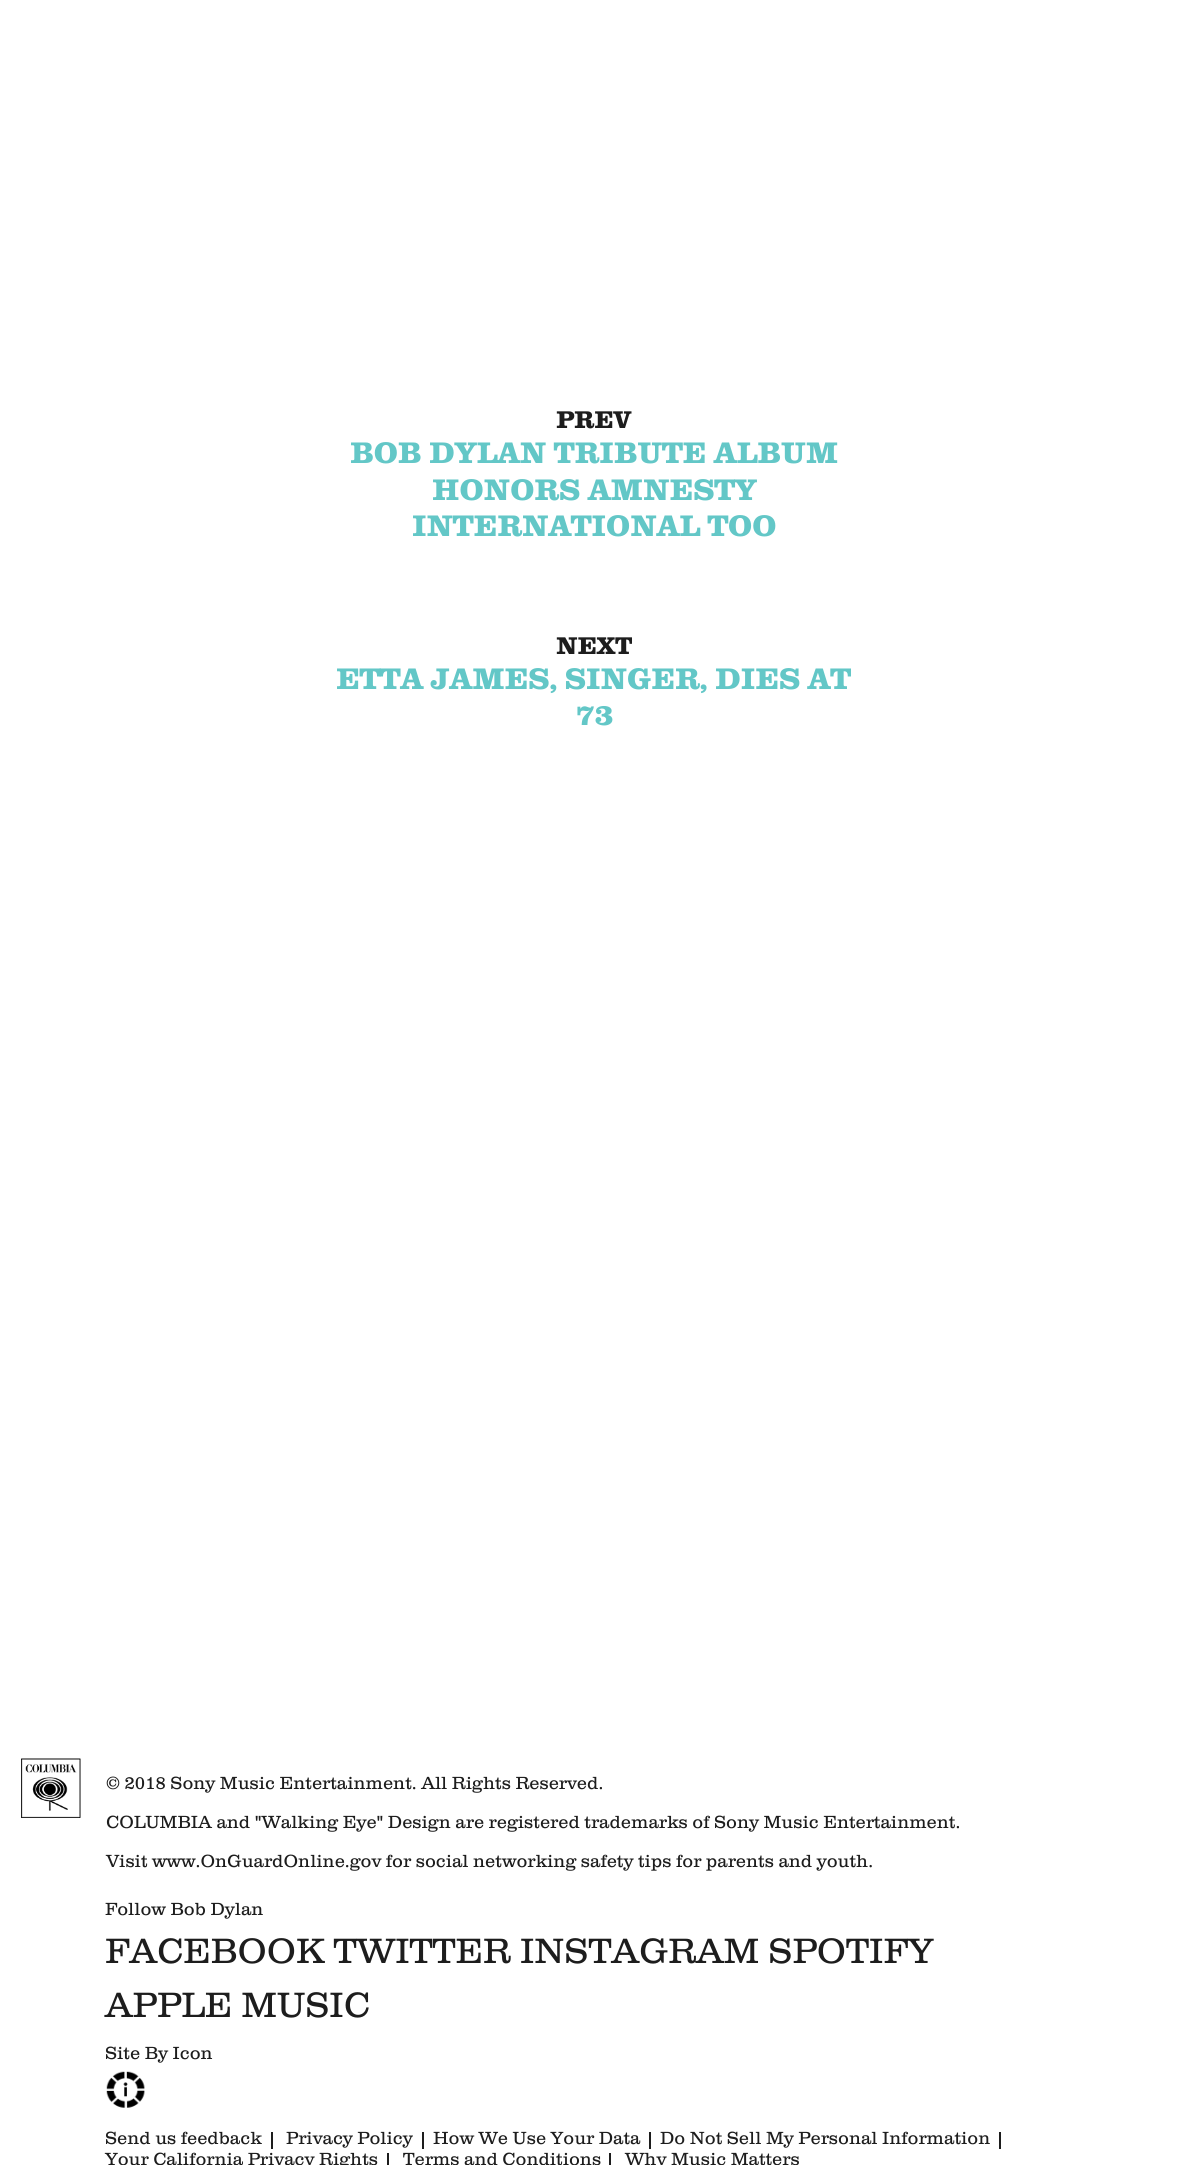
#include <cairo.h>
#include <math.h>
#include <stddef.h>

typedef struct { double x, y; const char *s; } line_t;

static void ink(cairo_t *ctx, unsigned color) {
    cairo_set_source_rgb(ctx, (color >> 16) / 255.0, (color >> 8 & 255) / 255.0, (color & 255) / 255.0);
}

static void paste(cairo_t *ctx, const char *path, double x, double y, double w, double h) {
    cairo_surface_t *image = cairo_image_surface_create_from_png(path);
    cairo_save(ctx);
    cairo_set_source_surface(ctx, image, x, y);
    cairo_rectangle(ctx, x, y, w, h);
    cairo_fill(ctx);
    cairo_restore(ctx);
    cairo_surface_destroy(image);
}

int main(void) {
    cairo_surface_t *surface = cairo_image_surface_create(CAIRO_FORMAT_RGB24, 1188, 2165);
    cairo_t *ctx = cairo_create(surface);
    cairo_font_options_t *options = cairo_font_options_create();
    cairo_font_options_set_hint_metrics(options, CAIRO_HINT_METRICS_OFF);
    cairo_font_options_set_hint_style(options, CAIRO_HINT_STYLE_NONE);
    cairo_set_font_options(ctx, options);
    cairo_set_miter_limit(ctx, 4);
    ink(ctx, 0xFFFFFF);
    cairo_paint(ctx);
    cairo_select_font_face(ctx, "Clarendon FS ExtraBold", CAIRO_FONT_SLANT_NORMAL, CAIRO_FONT_WEIGHT_NORMAL);
    cairo_set_font_size(ctx, 25);
    ink(ctx, 0x1D1D1D);
    cairo_move_to(ctx, 556, 428);
    cairo_show_text(ctx, "PREV");
    cairo_set_font_size(ctx, 30.75);
    ink(ctx, 0x63C7C7);
    {
        static const line_t items[] = {
            {350, 463, "BOB DYLAN TRIBUTE ALBUM"},
            {432, 500, "HONORS AMNESTY"},
            {412, 536, "INTERNATIONAL TOO"},
        };
        for (size_t i = 0; i < sizeof items / sizeof *items; i++) {
            cairo_move_to(ctx, items[i].x, items[i].y);
            cairo_show_text(ctx, items[i].s);
        }
    }
    cairo_set_font_size(ctx, 25);
    ink(ctx, 0x1D1D1D);
    cairo_move_to(ctx, 556, 654);
    cairo_show_text(ctx, "NEXT");
    cairo_set_font_size(ctx, 30.75);
    ink(ctx, 0x63C7C7);
    cairo_move_to(ctx, 336, 689);
    cairo_show_text(ctx, "ETTA JAMES, SINGER, DIES AT");
    cairo_move_to(ctx, 575, 725);
    cairo_show_text(ctx, "73");
    paste(ctx, "media/1.png", 21, 1758, 60, 60);
    cairo_select_font_face(ctx, "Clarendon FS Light", CAIRO_FONT_SLANT_NORMAL, CAIRO_FONT_WEIGHT_NORMAL);
    cairo_set_font_size(ctx, 18.2);
    ink(ctx, 0x1D1D1D);
    {
        static const line_t items[] = {
            {106, 1789, "© 2018 Sony Music Entertainment. All Rights Reserved."},
            {106, 1828, "COLUMBIA and \"Walking Eye\" Design are registered trademarks of Sony Music Entertainment."},
            {106, 1867, "Visit www.OnGuardOnline.gov for social networking safety tips for parents and youth."},
            {105, 1915, "Follow Bob Dylan"},
        };
        for (size_t i = 0; i < sizeof items / sizeof *items; i++) {
            cairo_move_to(ctx, items[i].x, items[i].y);
            cairo_show_text(ctx, items[i].s);
        }
    }
    cairo_set_font_size(ctx, 36.4);
    cairo_move_to(ctx, 105, 1963);
    cairo_show_text(ctx, "FACEBOOK TWITTER INSTAGRAM SPOTIFY");
    cairo_move_to(ctx, 105, 2017);
    cairo_show_text(ctx, "APPLE MUSIC");
    paste(ctx, "media/2.png", 106, 2071, 39, 37);
    cairo_set_font_size(ctx, 18.2);
    cairo_move_to(ctx, 105, 2059);
    cairo_show_text(ctx, "Site By Icon");
    cairo_rectangle(ctx, 271, 2132, 2, 17);
    cairo_fill(ctx);
    cairo_move_to(ctx, 105, 2144);
    cairo_show_text(ctx, "Send us feedback");
    cairo_rectangle(ctx, 422, 2132, 2, 17);
    cairo_fill(ctx);
    cairo_move_to(ctx, 286, 2144);
    cairo_show_text(ctx, "Privacy Policy");
    cairo_rectangle(ctx, 649, 2132, 2, 17);
    cairo_fill(ctx);
    cairo_move_to(ctx, 433, 2144);
    cairo_show_text(ctx, "How We Use Your Data");
    cairo_rectangle(ctx, 999, 2132, 2, 17);
    cairo_fill(ctx);
    cairo_move_to(ctx, 660, 2144);
    cairo_show_text(ctx, "Do Not Sell My Personal Information");
    cairo_rectangle(ctx, 387, 2153, 2, 12);
    cairo_fill(ctx);
    cairo_move_to(ctx, 105, 2165);
    cairo_show_text(ctx, "Your California Privacy Rights");
    cairo_rectangle(ctx, 609, 2153, 2, 12);
    cairo_fill(ctx);
    cairo_move_to(ctx, 403, 2165);
    cairo_show_text(ctx, "Terms and Conditions");
    cairo_move_to(ctx, 625, 2165);
    cairo_show_text(ctx, "Why Music Matters");
    cairo_surface_write_to_png(surface, "image.png");
    cairo_font_options_destroy(options);
    cairo_destroy(ctx);
    cairo_surface_destroy(surface);
    return 0;
}
